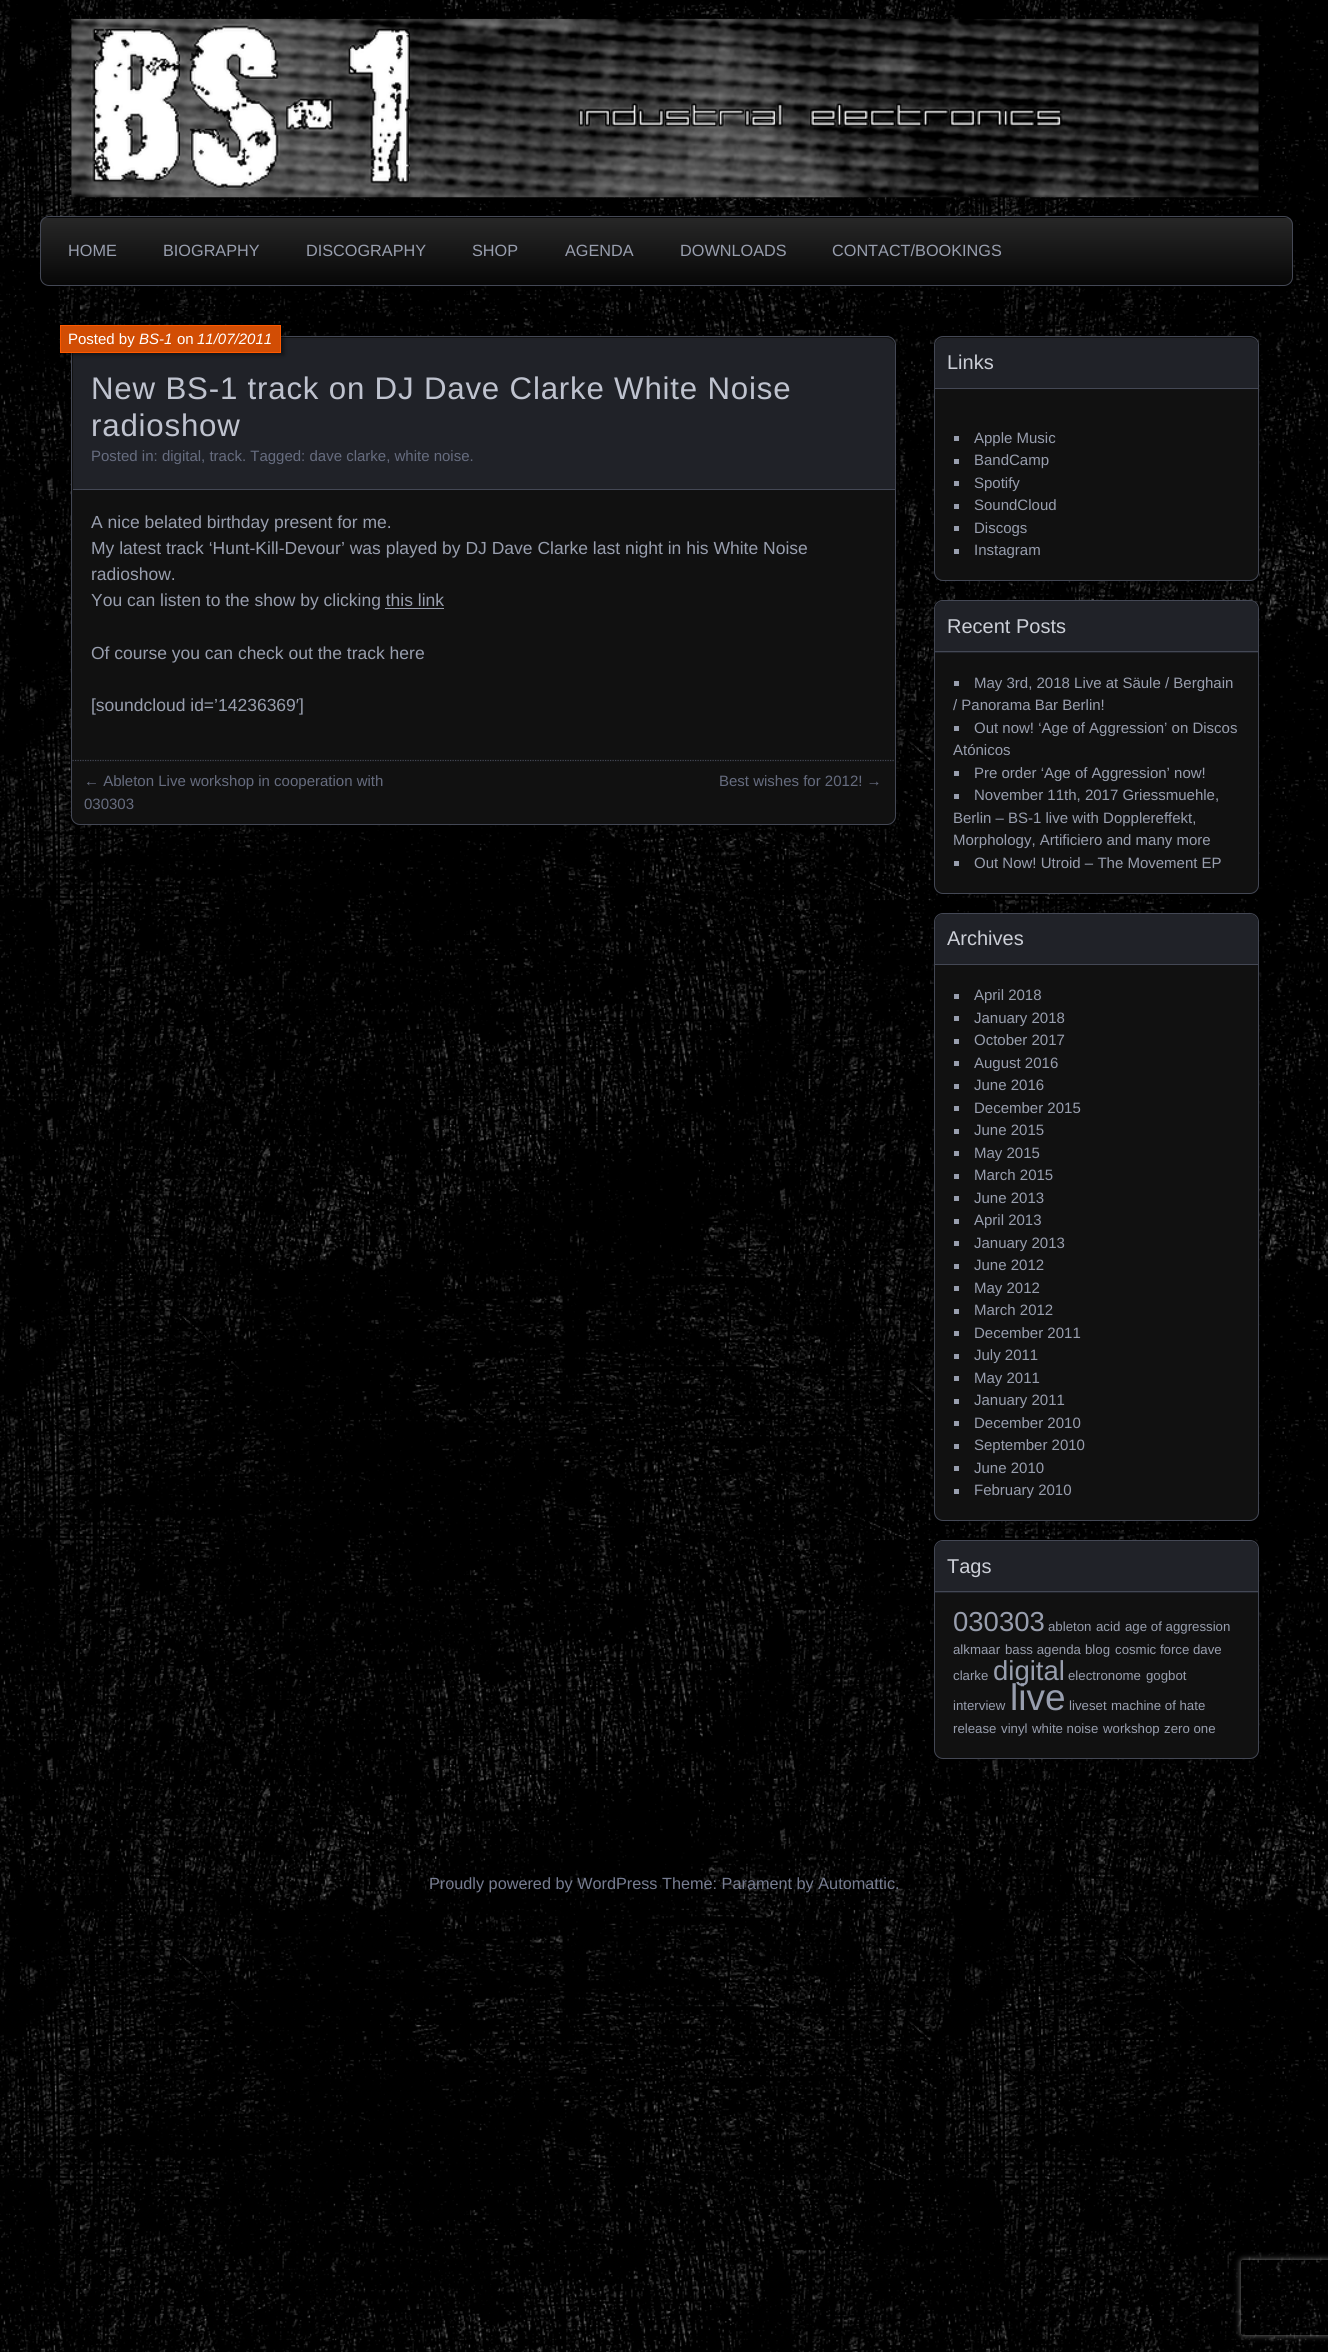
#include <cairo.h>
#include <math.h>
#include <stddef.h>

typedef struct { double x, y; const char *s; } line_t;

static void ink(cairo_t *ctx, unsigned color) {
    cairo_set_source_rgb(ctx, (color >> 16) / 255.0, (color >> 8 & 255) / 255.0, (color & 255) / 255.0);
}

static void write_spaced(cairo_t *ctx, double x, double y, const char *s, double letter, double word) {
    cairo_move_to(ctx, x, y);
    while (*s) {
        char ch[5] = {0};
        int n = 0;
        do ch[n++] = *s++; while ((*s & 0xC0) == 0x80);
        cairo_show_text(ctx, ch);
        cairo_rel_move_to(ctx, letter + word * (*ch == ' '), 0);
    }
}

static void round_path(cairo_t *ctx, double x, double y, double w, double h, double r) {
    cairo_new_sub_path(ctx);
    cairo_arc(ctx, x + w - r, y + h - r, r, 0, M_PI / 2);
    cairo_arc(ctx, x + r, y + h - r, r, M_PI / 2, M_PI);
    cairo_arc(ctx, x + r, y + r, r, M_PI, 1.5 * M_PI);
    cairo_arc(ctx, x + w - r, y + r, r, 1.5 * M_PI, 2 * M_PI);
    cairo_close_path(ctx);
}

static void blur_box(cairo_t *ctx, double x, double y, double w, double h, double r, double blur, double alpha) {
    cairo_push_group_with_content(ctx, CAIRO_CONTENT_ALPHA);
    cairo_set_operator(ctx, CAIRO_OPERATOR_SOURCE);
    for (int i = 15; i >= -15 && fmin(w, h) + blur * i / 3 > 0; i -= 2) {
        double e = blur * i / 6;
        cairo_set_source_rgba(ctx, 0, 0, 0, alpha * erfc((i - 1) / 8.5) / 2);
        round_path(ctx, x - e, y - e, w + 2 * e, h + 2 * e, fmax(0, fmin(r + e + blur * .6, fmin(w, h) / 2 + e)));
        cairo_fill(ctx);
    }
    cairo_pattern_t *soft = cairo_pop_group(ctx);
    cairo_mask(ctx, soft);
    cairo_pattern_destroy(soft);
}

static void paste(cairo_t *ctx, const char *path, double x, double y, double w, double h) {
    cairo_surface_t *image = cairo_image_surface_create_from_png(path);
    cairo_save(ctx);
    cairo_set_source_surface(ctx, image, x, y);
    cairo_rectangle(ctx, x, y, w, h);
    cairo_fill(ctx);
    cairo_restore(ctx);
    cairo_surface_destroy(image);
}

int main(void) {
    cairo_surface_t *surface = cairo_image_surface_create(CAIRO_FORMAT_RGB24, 1328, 2352);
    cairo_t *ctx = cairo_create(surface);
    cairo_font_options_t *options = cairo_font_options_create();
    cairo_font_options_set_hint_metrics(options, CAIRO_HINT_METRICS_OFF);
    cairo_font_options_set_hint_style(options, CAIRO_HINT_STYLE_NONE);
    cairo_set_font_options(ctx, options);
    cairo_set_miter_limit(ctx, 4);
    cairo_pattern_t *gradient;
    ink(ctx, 0xFFFFFF);
    cairo_paint(ctx);
    paste(ctx, "media/1.png", 0, 0, 1328, 2352);
    paste(ctx, "media/2.png", 71, 18, 1188, 180);
    ink(ctx, 0x000000);
    blur_box(ctx, 44, 220, 1252, 70, 9, 2.5, 0.45);
    cairo_save(ctx);
    round_path(ctx, 40, 216, 1253, 70, 9);
    cairo_clip(ctx);
    gradient = cairo_pattern_create_linear(666, 150, 666, 218);
    cairo_pattern_add_color_stop_rgba(gradient, 0.01, 0.153, 0.153, 0.153, 1);
    cairo_pattern_add_color_stop_rgba(gradient, 1, 0.027, 0.027, 0.027, 1);
    cairo_set_source(ctx, gradient);
    cairo_pattern_destroy(gradient);
    cairo_rectangle(ctx, 40, 216, 1253, 2);
    cairo_fill(ctx);
    gradient = cairo_pattern_create_linear(666, 217, 666, 285);
    cairo_pattern_add_color_stop_rgba(gradient, 0.01, 0.153, 0.153, 0.153, 1);
    cairo_pattern_add_color_stop_rgba(gradient, 1, 0.027, 0.027, 0.027, 1);
    cairo_set_source(ctx, gradient);
    cairo_pattern_destroy(gradient);
    cairo_rectangle(ctx, 40, 218, 1253, 67);
    cairo_fill(ctx);
    cairo_restore(ctx);
    round_path(ctx, 40.5, 216.5, 1252, 69, 8.5);
    ink(ctx, 0x444855);
    cairo_set_line_width(ctx, 1);
    cairo_stroke(ctx);
    cairo_select_font_face(ctx, "Liberation Sans", CAIRO_FONT_SLANT_NORMAL, CAIRO_FONT_WEIGHT_NORMAL);
    cairo_set_font_size(ctx, 16.25);
    ink(ctx, 0x989EAE);
    {
        static const line_t items[] = {
            {68, 256, "HOME"},
            {163, 256, "BIOGRAPHY"},
            {306, 256, "DISCOGRAPHY"},
            {472, 256, "SHOP"},
            {565, 256, "AGENDA"},
            {680, 256, "DOWNLOADS"},
            {832, 256, "CONTACT/BOOKINGS"},
        };
        for (size_t i = 0; i < sizeof items / sizeof *items; i++) {
            cairo_move_to(ctx, items[i].x, items[i].y);
            cairo_show_text(ctx, items[i].s);
        }
    }
    ink(ctx, 0x000000);
    blur_box(ctx, 75, 340, 825, 489, 9, 2.5, 0.45);
    ink(ctx, 0x111111);
    round_path(ctx, 71.5, 336.5, 824, 488, 8.5);
    cairo_fill_preserve(ctx);
    ink(ctx, 0x444855);
    cairo_stroke(ctx);
    ink(ctx, 0x202228);
    cairo_new_path(ctx);
    cairo_move_to(ctx, 82, 338);
    cairo_line_to(ctx, 886, 338);
    cairo_curve_to(ctx, 891, 338, 895, 342, 895, 347);
    cairo_line_to(ctx, 895, 490);
    cairo_line_to(ctx, 73, 490);
    cairo_line_to(ctx, 73, 347);
    cairo_curve_to(ctx, 73, 342, 77, 338, 82, 338);
    cairo_close_path(ctx);
    cairo_fill(ctx);
    ink(ctx, 0x444855);
    cairo_rectangle(ctx, 73, 489, 822, 1);
    cairo_fill(ctx);
    ink(ctx, 0x000000);
    blur_box(ctx, 63, 328, 221, 27, 0, 2, 0.45);
    ink(ctx, 0xD24D04);
    cairo_rectangle(ctx, 60.5, 325.5, 220, 27);
    cairo_fill_preserve(ctx);
    ink(ctx, 0xFF5A00);
    cairo_stroke(ctx);
    cairo_set_font_size(ctx, 15);
    ink(ctx, 0xFFFFFF);
    cairo_move_to(ctx, 68, 344);
    cairo_show_text(ctx, "Posted by");
    cairo_select_font_face(ctx, "Liberation Sans", CAIRO_FONT_SLANT_ITALIC, CAIRO_FONT_WEIGHT_NORMAL);
    cairo_move_to(ctx, 139, 344);
    cairo_show_text(ctx, "BS-1");
    cairo_select_font_face(ctx, "Liberation Sans", CAIRO_FONT_SLANT_NORMAL, CAIRO_FONT_WEIGHT_NORMAL);
    cairo_move_to(ctx, 177, 344);
    cairo_show_text(ctx, "on");
    cairo_select_font_face(ctx, "Liberation Sans", CAIRO_FONT_SLANT_ITALIC, CAIRO_FONT_WEIGHT_NORMAL);
    cairo_move_to(ctx, 197, 344);
    cairo_show_text(ctx, "11/07/2011");
    cairo_select_font_face(ctx, "Liberation Sans", CAIRO_FONT_SLANT_NORMAL, CAIRO_FONT_WEIGHT_NORMAL);
    cairo_set_font_size(ctx, 31.25);
    ink(ctx, 0xBFC3CF);
    write_spaced(ctx, 91, 399, "New BS-1 track on DJ Dave Clarke White Noise", 0.8, 0);
    write_spaced(ctx, 91, 436, "radioshow", 0.8, 0);
    cairo_set_font_size(ctx, 15);
    ink(ctx, 0x666C7F);
    cairo_move_to(ctx, 91, 461);
    cairo_show_text(ctx, "Posted in: digital, track. Tagged: dave clarke, white noise.");
    cairo_set_font_size(ctx, 17.5);
    ink(ctx, 0x989EAE);
    {
        static const line_t items[] = {
            {91, 528, "A nice belated birthday present for me."},
            {91, 554, "My latest track ‘Hunt-Kill-Devour’ was played by DJ Dave Clarke last night in his White Noise"},
            {91, 580, "radioshow."},
            {91, 606, "You can listen to the show by clicking this link"},
        };
        for (size_t i = 0; i < sizeof items / sizeof *items; i++) {
            cairo_move_to(ctx, items[i].x, items[i].y);
            cairo_show_text(ctx, items[i].s);
        }
    }
    cairo_rectangle(ctx, 385, 608, 59, 1);
    cairo_fill(ctx);
    cairo_move_to(ctx, 91, 659);
    cairo_show_text(ctx, "Of course you can check out the track here");
    cairo_move_to(ctx, 91, 711);
    cairo_show_text(ctx, "[soundcloud id=’14236369′]");
    cairo_new_path(ctx);
    cairo_move_to(ctx, 72.5, 760.5);
    cairo_line_to(ctx, 895, 760.5);
    ink(ctx, 0x444855);
    cairo_set_line_width(ctx, 1.2);
    cairo_set_dash(ctx, (double[]){1.25, 1.25}, 2, 0);
    cairo_stroke(ctx);
    cairo_set_font_size(ctx, 15);
    ink(ctx, 0x666C7F);
    {
        static const line_t items[] = {
            {84, 786, "← Ableton Live workshop in cooperation with"},
            {84, 809, "030303"},
            {719, 786, "Best wishes for 2012! →"},
        };
        for (size_t i = 0; i < sizeof items / sizeof *items; i++) {
            cairo_move_to(ctx, items[i].x, items[i].y);
            cairo_show_text(ctx, items[i].s);
        }
    }
    ink(ctx, 0x000000);
    blur_box(ctx, 936, 339, 325, 245, 9, 2, 0.45);
    ink(ctx, 0x111111);
    round_path(ctx, 934.5, 336.5, 324, 244, 8.5);
    cairo_fill_preserve(ctx);
    ink(ctx, 0x444855);
    cairo_set_line_width(ctx, 1);
    cairo_set_dash(ctx, NULL, 0, 0);
    cairo_stroke(ctx);
    ink(ctx, 0x202228);
    cairo_new_path(ctx);
    cairo_move_to(ctx, 943, 338);
    cairo_line_to(ctx, 1250, 338);
    cairo_curve_to(ctx, 1254.5, 338, 1258, 341.5, 1258, 346);
    cairo_line_to(ctx, 1258, 389);
    cairo_line_to(ctx, 935, 389);
    cairo_line_to(ctx, 935, 346);
    cairo_curve_to(ctx, 935, 341.5, 938.5, 338, 943, 338);
    cairo_close_path(ctx);
    cairo_fill(ctx);
    ink(ctx, 0x444855);
    cairo_rectangle(ctx, 935, 388, 323, 1);
    cairo_fill(ctx);
    cairo_set_font_size(ctx, 20);
    ink(ctx, 0xCCCFD7);
    cairo_move_to(ctx, 947, 369);
    cairo_show_text(ctx, "Links");
    ink(ctx, 0x989EAE);
    cairo_rectangle(ctx, 954, 436, 5, 5);
    cairo_fill(ctx);
    cairo_set_font_size(ctx, 15);
    cairo_move_to(ctx, 974, 443);
    cairo_show_text(ctx, "Apple Music");
    cairo_rectangle(ctx, 954, 459, 5, 5);
    cairo_fill(ctx);
    cairo_move_to(ctx, 974, 465);
    cairo_show_text(ctx, "BandCamp");
    cairo_rectangle(ctx, 954, 481, 5, 5);
    cairo_fill(ctx);
    cairo_move_to(ctx, 974, 488);
    cairo_show_text(ctx, "Spotify");
    cairo_rectangle(ctx, 954, 504, 5, 5);
    cairo_fill(ctx);
    cairo_move_to(ctx, 974, 510);
    cairo_show_text(ctx, "SoundCloud");
    cairo_rectangle(ctx, 954, 526, 5, 5);
    cairo_fill(ctx);
    cairo_move_to(ctx, 974, 533);
    cairo_show_text(ctx, "Discogs");
    cairo_rectangle(ctx, 954, 549, 5, 5);
    cairo_fill(ctx);
    cairo_move_to(ctx, 974, 555);
    cairo_show_text(ctx, "Instagram");
    ink(ctx, 0x000000);
    blur_box(ctx, 936, 603, 325, 293, 9, 2, 0.45);
    ink(ctx, 0x111111);
    round_path(ctx, 934.5, 600.5, 324, 293, 8.5);
    cairo_fill_preserve(ctx);
    ink(ctx, 0x444855);
    cairo_stroke(ctx);
    ink(ctx, 0x202228);
    cairo_new_path(ctx);
    cairo_move_to(ctx, 943, 601);
    cairo_line_to(ctx, 1250, 601);
    cairo_curve_to(ctx, 1254.5, 601, 1258, 604.5, 1258, 609);
    cairo_line_to(ctx, 1258, 653);
    cairo_line_to(ctx, 935, 653);
    cairo_line_to(ctx, 935, 609);
    cairo_curve_to(ctx, 935, 604.5, 938.5, 601, 943, 601);
    cairo_close_path(ctx);
    cairo_fill(ctx);
    ink(ctx, 0x444855);
    cairo_rectangle(ctx, 935, 651, 323, 1);
    cairo_fill(ctx);
    cairo_set_font_size(ctx, 20);
    ink(ctx, 0xCCCFD7);
    cairo_move_to(ctx, 947, 633);
    cairo_show_text(ctx, "Recent Posts");
    ink(ctx, 0x989EAE);
    cairo_rectangle(ctx, 954, 681, 5, 5);
    cairo_fill(ctx);
    cairo_set_font_size(ctx, 15);
    cairo_move_to(ctx, 974, 688);
    cairo_show_text(ctx, "May 3rd, 2018 Live at Säule / Berghain");
    cairo_move_to(ctx, 953, 710);
    cairo_show_text(ctx, "/ Panorama Bar Berlin!");
    cairo_rectangle(ctx, 954, 726, 5, 5);
    cairo_fill(ctx);
    cairo_move_to(ctx, 974, 733);
    cairo_show_text(ctx, "Out now! ‘Age of Aggression’ on Discos");
    cairo_move_to(ctx, 953, 755);
    cairo_show_text(ctx, "Atónicos");
    cairo_rectangle(ctx, 954, 771, 5, 5);
    cairo_fill(ctx);
    cairo_move_to(ctx, 974, 778);
    cairo_show_text(ctx, "Pre order ‘Age of Aggression’ now!");
    cairo_rectangle(ctx, 954, 794, 5, 5);
    cairo_fill(ctx);
    {
        static const line_t items[] = {
            {974, 800, "November 11th, 2017 Griessmuehle,"},
            {953, 823, "Berlin – BS-1 live with Dopplereffekt,"},
            {953, 845, "Morphology, Artificiero and many more"},
        };
        for (size_t i = 0; i < sizeof items / sizeof *items; i++) {
            cairo_move_to(ctx, items[i].x, items[i].y);
            cairo_show_text(ctx, items[i].s);
        }
    }
    cairo_rectangle(ctx, 954, 861, 5, 5);
    cairo_fill(ctx);
    cairo_move_to(ctx, 974, 868);
    cairo_show_text(ctx, "Out Now! Utroid – The Movement EP");
    ink(ctx, 0x000000);
    blur_box(ctx, 936, 915, 325, 609, 9, 2, 0.45);
    ink(ctx, 0x111111);
    round_path(ctx, 934.5, 913.5, 324, 607, 8.5);
    cairo_fill_preserve(ctx);
    ink(ctx, 0x444855);
    cairo_stroke(ctx);
    ink(ctx, 0x202228);
    cairo_new_path(ctx);
    cairo_move_to(ctx, 943, 914);
    cairo_line_to(ctx, 1250, 914);
    cairo_curve_to(ctx, 1254.5, 914, 1258, 917.5, 1258, 922);
    cairo_line_to(ctx, 1258, 965);
    cairo_line_to(ctx, 935, 965);
    cairo_line_to(ctx, 935, 922);
    cairo_curve_to(ctx, 935, 917.5, 938.5, 914, 943, 914);
    cairo_close_path(ctx);
    cairo_fill(ctx);
    ink(ctx, 0x444855);
    cairo_rectangle(ctx, 935, 964, 323, 1);
    cairo_fill(ctx);
    cairo_set_font_size(ctx, 20);
    ink(ctx, 0xCCCFD7);
    cairo_move_to(ctx, 947, 945);
    cairo_show_text(ctx, "Archives");
    ink(ctx, 0x989EAE);
    cairo_rectangle(ctx, 954, 994, 5, 5);
    cairo_fill(ctx);
    cairo_set_font_size(ctx, 15);
    cairo_move_to(ctx, 974, 1000);
    cairo_show_text(ctx, "April 2018");
    cairo_rectangle(ctx, 954, 1016, 5, 5);
    cairo_fill(ctx);
    cairo_move_to(ctx, 974, 1023);
    cairo_show_text(ctx, "January 2018");
    cairo_rectangle(ctx, 954, 1039, 5, 5);
    cairo_fill(ctx);
    cairo_move_to(ctx, 974, 1045);
    cairo_show_text(ctx, "October 2017");
    cairo_rectangle(ctx, 954, 1061, 5, 5);
    cairo_fill(ctx);
    cairo_move_to(ctx, 974, 1068);
    cairo_show_text(ctx, "August 2016");
    cairo_rectangle(ctx, 954, 1084, 5, 5);
    cairo_fill(ctx);
    cairo_move_to(ctx, 974, 1090);
    cairo_show_text(ctx, "June 2016");
    cairo_rectangle(ctx, 954, 1106, 5, 5);
    cairo_fill(ctx);
    cairo_move_to(ctx, 974, 1113);
    cairo_show_text(ctx, "December 2015");
    cairo_rectangle(ctx, 954, 1129, 5, 5);
    cairo_fill(ctx);
    cairo_move_to(ctx, 974, 1135);
    cairo_show_text(ctx, "June 2015");
    cairo_rectangle(ctx, 954, 1151, 5, 5);
    cairo_fill(ctx);
    cairo_move_to(ctx, 974, 1158);
    cairo_show_text(ctx, "May 2015");
    cairo_rectangle(ctx, 954, 1174, 5, 5);
    cairo_fill(ctx);
    cairo_move_to(ctx, 974, 1180);
    cairo_show_text(ctx, "March 2015");
    cairo_rectangle(ctx, 954, 1196, 5, 5);
    cairo_fill(ctx);
    cairo_move_to(ctx, 974, 1203);
    cairo_show_text(ctx, "June 2013");
    cairo_rectangle(ctx, 954, 1219, 5, 5);
    cairo_fill(ctx);
    cairo_move_to(ctx, 974, 1225);
    cairo_show_text(ctx, "April 2013");
    cairo_rectangle(ctx, 954, 1241, 5, 5);
    cairo_fill(ctx);
    cairo_move_to(ctx, 974, 1248);
    cairo_show_text(ctx, "January 2013");
    cairo_rectangle(ctx, 954, 1264, 5, 5);
    cairo_fill(ctx);
    cairo_move_to(ctx, 974, 1270);
    cairo_show_text(ctx, "June 2012");
    cairo_rectangle(ctx, 954, 1286, 5, 5);
    cairo_fill(ctx);
    cairo_move_to(ctx, 974, 1293);
    cairo_show_text(ctx, "May 2012");
    cairo_rectangle(ctx, 954, 1309, 5, 5);
    cairo_fill(ctx);
    cairo_move_to(ctx, 974, 1315);
    cairo_show_text(ctx, "March 2012");
    cairo_rectangle(ctx, 954, 1331, 5, 5);
    cairo_fill(ctx);
    cairo_move_to(ctx, 974, 1338);
    cairo_show_text(ctx, "December 2011");
    cairo_rectangle(ctx, 954, 1354, 5, 5);
    cairo_fill(ctx);
    cairo_move_to(ctx, 974, 1360);
    cairo_show_text(ctx, "July 2011");
    cairo_rectangle(ctx, 954, 1376, 5, 5);
    cairo_fill(ctx);
    cairo_move_to(ctx, 974, 1383);
    cairo_show_text(ctx, "May 2011");
    cairo_rectangle(ctx, 954, 1399, 5, 5);
    cairo_fill(ctx);
    cairo_move_to(ctx, 974, 1405);
    cairo_show_text(ctx, "January 2011");
    cairo_rectangle(ctx, 954, 1421, 5, 5);
    cairo_fill(ctx);
    cairo_move_to(ctx, 974, 1428);
    cairo_show_text(ctx, "December 2010");
    cairo_rectangle(ctx, 954, 1444, 5, 5);
    cairo_fill(ctx);
    cairo_move_to(ctx, 974, 1450);
    cairo_show_text(ctx, "September 2010");
    cairo_rectangle(ctx, 954, 1466, 5, 5);
    cairo_fill(ctx);
    cairo_move_to(ctx, 974, 1473);
    cairo_show_text(ctx, "June 2010");
    cairo_rectangle(ctx, 954, 1489, 5, 5);
    cairo_fill(ctx);
    cairo_move_to(ctx, 974, 1495);
    cairo_show_text(ctx, "February 2010");
    ink(ctx, 0x000000);
    blur_box(ctx, 936, 1543, 325, 218, 9, 2, 0.45);
    ink(ctx, 0x111111);
    round_path(ctx, 934.5, 1540.5, 324, 218, 8.5);
    cairo_fill_preserve(ctx);
    ink(ctx, 0x444855);
    cairo_stroke(ctx);
    ink(ctx, 0x202228);
    cairo_new_path(ctx);
    cairo_move_to(ctx, 943, 1541);
    cairo_line_to(ctx, 1250, 1541);
    cairo_curve_to(ctx, 1254.5, 1541, 1258, 1544.5, 1258, 1549);
    cairo_line_to(ctx, 1258, 1593);
    cairo_line_to(ctx, 935, 1593);
    cairo_line_to(ctx, 935, 1549);
    cairo_curve_to(ctx, 935, 1544.5, 938.5, 1541, 943, 1541);
    cairo_close_path(ctx);
    cairo_fill(ctx);
    ink(ctx, 0x444855);
    cairo_rectangle(ctx, 935, 1591, 323, 1);
    cairo_fill(ctx);
    cairo_set_font_size(ctx, 20);
    ink(ctx, 0xCCCFD7);
    cairo_move_to(ctx, 947, 1573);
    cairo_show_text(ctx, "Tags");
    cairo_set_font_size(ctx, 27.5);
    ink(ctx, 0x989EAE);
    cairo_move_to(ctx, 953, 1631);
    cairo_show_text(ctx, "030303");
    cairo_set_font_size(ctx, 13.25);
    {
        static const line_t items[] = {
            {1048, 1631, "ableton"},
            {1096, 1631, "acid"},
            {1125, 1631, "age of aggression"},
            {953, 1654, "alkmaar"},
            {1005, 1654, "bass agenda"},
            {1085, 1654, "blog"},
            {1115, 1654, "cosmic force"},
            {1193, 1654, "dave"},
            {953, 1680, "clarke"},
        };
        for (size_t i = 0; i < sizeof items / sizeof *items; i++) {
            cairo_move_to(ctx, items[i].x, items[i].y);
            cairo_show_text(ctx, items[i].s);
        }
    }
    cairo_set_font_size(ctx, 27.5);
    cairo_move_to(ctx, 993, 1680);
    cairo_show_text(ctx, "digital");
    cairo_set_font_size(ctx, 13.25);
    {
        static const line_t items[] = {
            {1068, 1680, "electronome"},
            {1146, 1680, "gogbot"},
            {953, 1710, "interview"},
        };
        for (size_t i = 0; i < sizeof items / sizeof *items; i++) {
            cairo_move_to(ctx, items[i].x, items[i].y);
            cairo_show_text(ctx, items[i].s);
        }
    }
    cairo_set_font_size(ctx, 37);
    cairo_move_to(ctx, 1010, 1710);
    cairo_show_text(ctx, "live");
    cairo_set_font_size(ctx, 13.25);
    {
        static const line_t items[] = {
            {1069, 1710, "liveset"},
            {1111, 1710, "machine of hate"},
            {953, 1733, "release"},
            {1001, 1733, "vinyl"},
            {1032, 1733, "white noise"},
            {1103, 1733, "workshop"},
            {1164, 1733, "zero one"},
        };
        for (size_t i = 0; i < sizeof items / sizeof *items; i++) {
            cairo_move_to(ctx, items[i].x, items[i].y);
            cairo_show_text(ctx, items[i].s);
        }
    }
    cairo_set_font_size(ctx, 16.25);
    ink(ctx, 0x777D92);
    cairo_move_to(ctx, 429, 1889);
    cairo_show_text(ctx, "Proudly powered by WordPress Theme: Parament by Automattic.");
    cairo_save(ctx);
    cairo_set_fill_rule(ctx, CAIRO_FILL_RULE_EVEN_ODD);
    cairo_new_path(ctx);
    cairo_move_to(ctx, 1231, 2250);
    cairo_line_to(ctx, 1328, 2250);
    cairo_line_to(ctx, 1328, 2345);
    cairo_line_to(ctx, 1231, 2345);
    cairo_close_path(ctx);
    cairo_move_to(ctx, 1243.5, 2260);
    cairo_line_to(ctx, 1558.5, 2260);
    cairo_curve_to(ctx, 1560, 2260, 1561, 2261, 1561, 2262.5);
    cairo_line_to(ctx, 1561, 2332.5);
    cairo_curve_to(ctx, 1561, 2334, 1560, 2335, 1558.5, 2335);
    cairo_line_to(ctx, 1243.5, 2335);
    cairo_curve_to(ctx, 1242, 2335, 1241, 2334, 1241, 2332.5);
    cairo_line_to(ctx, 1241, 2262.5);
    cairo_curve_to(ctx, 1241, 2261, 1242, 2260, 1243.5, 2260);
    cairo_close_path(ctx);
    cairo_clip(ctx);
    ink(ctx, 0x808080);
    blur_box(ctx, 1241, 2260, 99, 75, 2.5, 3, 1);
    cairo_restore(ctx);
    cairo_surface_write_to_png(surface, "image.png");
    cairo_font_options_destroy(options);
    cairo_destroy(ctx);
    cairo_surface_destroy(surface);
    return 0;
}
